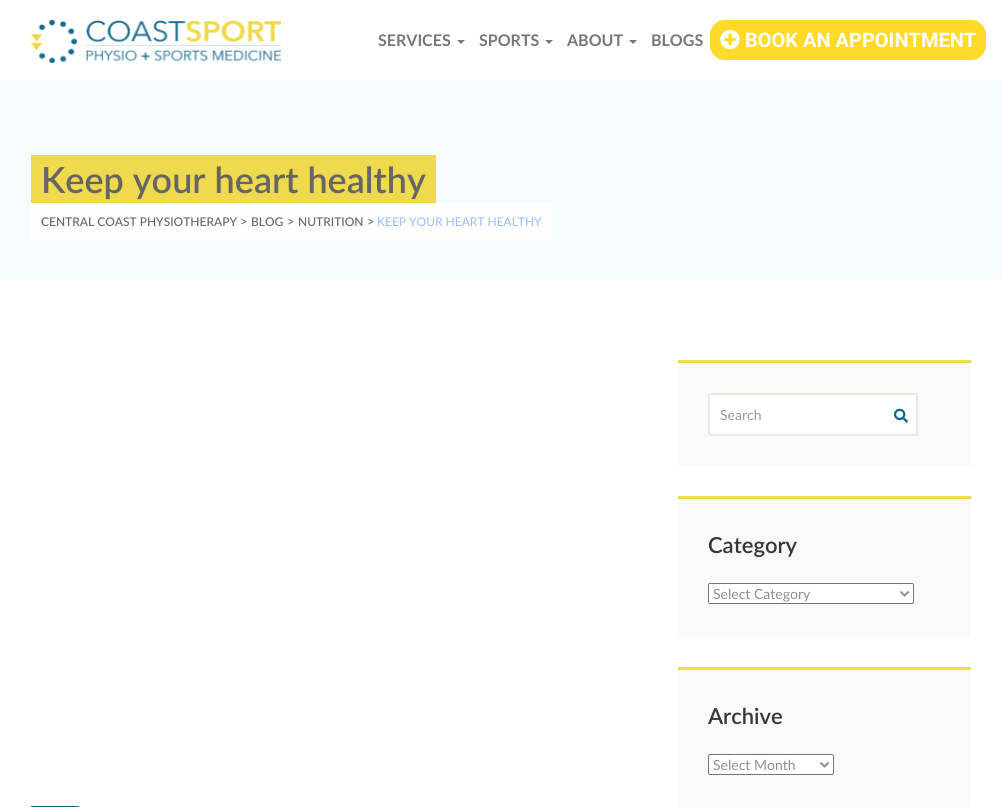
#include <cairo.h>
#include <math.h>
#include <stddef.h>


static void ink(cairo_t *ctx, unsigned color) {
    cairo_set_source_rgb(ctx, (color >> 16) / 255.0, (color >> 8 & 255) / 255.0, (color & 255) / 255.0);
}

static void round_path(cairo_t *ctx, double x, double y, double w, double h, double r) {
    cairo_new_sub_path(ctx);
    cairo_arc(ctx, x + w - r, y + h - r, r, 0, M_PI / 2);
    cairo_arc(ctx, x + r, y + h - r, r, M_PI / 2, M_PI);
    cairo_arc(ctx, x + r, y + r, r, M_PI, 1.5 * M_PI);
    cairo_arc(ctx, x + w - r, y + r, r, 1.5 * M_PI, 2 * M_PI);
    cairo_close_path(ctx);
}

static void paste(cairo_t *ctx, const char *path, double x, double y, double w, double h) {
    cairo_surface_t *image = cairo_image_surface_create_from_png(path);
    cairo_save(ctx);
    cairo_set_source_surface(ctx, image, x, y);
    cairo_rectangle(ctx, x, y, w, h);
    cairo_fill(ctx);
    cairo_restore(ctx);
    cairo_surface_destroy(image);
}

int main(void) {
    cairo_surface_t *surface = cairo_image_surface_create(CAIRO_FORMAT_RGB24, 1002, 807);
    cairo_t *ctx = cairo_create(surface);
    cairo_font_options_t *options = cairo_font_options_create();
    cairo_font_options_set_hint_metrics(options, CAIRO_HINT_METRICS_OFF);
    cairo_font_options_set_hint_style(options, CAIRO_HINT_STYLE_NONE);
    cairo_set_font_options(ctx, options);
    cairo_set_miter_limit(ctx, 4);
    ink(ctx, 0xFFFFFF);
    cairo_paint(ctx);
    paste(ctx, "media/1.png", 31, 20, 250, 43);
    cairo_select_font_face(ctx, "Lato", CAIRO_FONT_SLANT_NORMAL, CAIRO_FONT_WEIGHT_BOLD);
    cairo_set_font_size(ctx, 16);
    ink(ctx, 0x777777);
    cairo_move_to(ctx, 378, 46);
    cairo_show_text(ctx, "SERVICES");
    cairo_new_path(ctx);
    cairo_move_to(ctx, 457, 40);
    cairo_line_to(ctx, 465, 40);
    cairo_line_to(ctx, 461, 44);
    cairo_close_path(ctx);
    cairo_fill(ctx);
    cairo_move_to(ctx, 479, 46);
    cairo_show_text(ctx, "SPORTS");
    cairo_new_path(ctx);
    cairo_move_to(ctx, 545, 40);
    cairo_line_to(ctx, 553, 40);
    cairo_line_to(ctx, 549, 44);
    cairo_close_path(ctx);
    cairo_fill(ctx);
    cairo_move_to(ctx, 567, 46);
    cairo_show_text(ctx, "ABOUT");
    cairo_new_path(ctx);
    cairo_move_to(ctx, 629, 40);
    cairo_line_to(ctx, 637, 40);
    cairo_line_to(ctx, 633, 44);
    cairo_close_path(ctx);
    cairo_fill(ctx);
    cairo_move_to(ctx, 651, 46);
    cairo_show_text(ctx, "BLOGS");
    ink(ctx, 0xFFDA29);
    round_path(ctx, 710, 20, 276, 40, 15);
    cairo_fill(ctx);
    paste(ctx, "media/2.png", 720, 29, 20, 21);
    cairo_select_font_face(ctx, "Roboto", CAIRO_FONT_SLANT_NORMAL, CAIRO_FONT_WEIGHT_BOLD);
    cairo_set_font_size(ctx, 20);
    ink(ctx, 0xFFFFFF);
    cairo_move_to(ctx, 745, 47);
    cairo_show_text(ctx, "BOOK AN APPOINTMENT");
    ink(ctx, 0xF6FBFF);
    cairo_rectangle(ctx, 0, 80, 1002, 200);
    cairo_fill(ctx);
    ink(ctx, 0xEFD94D);
    cairo_rectangle(ctx, 31, 155, 405, 48);
    cairo_fill(ctx);
    cairo_select_font_face(ctx, "Lato SemiBold", CAIRO_FONT_SLANT_NORMAL, CAIRO_FONT_WEIGHT_NORMAL);
    cairo_set_font_size(ctx, 36);
    ink(ctx, 0x666666);
    cairo_move_to(ctx, 41, 193);
    cairo_show_text(ctx, "Keep your heart healthy");
    ink(ctx, 0xFEFEFE);
    cairo_rectangle(ctx, 31, 203, 521, 37);
    cairo_fill(ctx);
    cairo_select_font_face(ctx, "Lato Medium", CAIRO_FONT_SLANT_NORMAL, CAIRO_FONT_WEIGHT_NORMAL);
    cairo_set_font_size(ctx, 12);
    ink(ctx, 0x666666);
    cairo_move_to(ctx, 41, 226);
    cairo_show_text(ctx, "CENTRAL COAST PHYSIOTHERAPY");
    cairo_select_font_face(ctx, "Lato", CAIRO_FONT_SLANT_NORMAL, CAIRO_FONT_WEIGHT_NORMAL);
    cairo_set_font_size(ctx, 13);
    cairo_move_to(ctx, 240, 226);
    cairo_show_text(ctx, ">");
    cairo_select_font_face(ctx, "Lato Medium", CAIRO_FONT_SLANT_NORMAL, CAIRO_FONT_WEIGHT_NORMAL);
    cairo_set_font_size(ctx, 12);
    cairo_move_to(ctx, 251, 226);
    cairo_show_text(ctx, "BLOG");
    cairo_select_font_face(ctx, "Lato", CAIRO_FONT_SLANT_NORMAL, CAIRO_FONT_WEIGHT_NORMAL);
    cairo_set_font_size(ctx, 13);
    cairo_move_to(ctx, 287, 226);
    cairo_show_text(ctx, ">");
    cairo_select_font_face(ctx, "Lato Medium", CAIRO_FONT_SLANT_NORMAL, CAIRO_FONT_WEIGHT_NORMAL);
    cairo_set_font_size(ctx, 12);
    cairo_move_to(ctx, 298, 226);
    cairo_show_text(ctx, "NUTRITION");
    cairo_select_font_face(ctx, "Lato", CAIRO_FONT_SLANT_NORMAL, CAIRO_FONT_WEIGHT_NORMAL);
    cairo_set_font_size(ctx, 13);
    cairo_move_to(ctx, 367, 226);
    cairo_show_text(ctx, ">");
    cairo_set_font_size(ctx, 12);
    ink(ctx, 0x9ABDFF);
    cairo_move_to(ctx, 377, 226);
    cairo_show_text(ctx, "KEEP YOUR HEART HEALTHY");
    ink(ctx, 0xFAF9F7);
    cairo_rectangle(ctx, 678, 363, 293, 103);
    cairo_fill(ctx);
    ink(ctx, 0xEFD94D);
    cairo_rectangle(ctx, 678, 360, 293, 3);
    cairo_fill(ctx);
    ink(ctx, 0xFFFFFF);
    cairo_new_path(ctx);
    cairo_move_to(ctx, 711, 394);
    cairo_line_to(ctx, 917, 394);
    cairo_line_to(ctx, 917, 435);
    cairo_line_to(ctx, 711, 435);
    cairo_curve_to(ctx, 710, 435, 709, 434, 709, 433);
    cairo_line_to(ctx, 709, 396);
    cairo_curve_to(ctx, 709, 395, 710, 394, 711, 394);
    cairo_close_path(ctx);
    cairo_fill_preserve(ctx);
    ink(ctx, 0xEBE9E4);
    cairo_stroke(ctx);
    cairo_set_font_size(ctx, 14);
    ink(ctx, 0x999999);
    cairo_move_to(ctx, 720, 420);
    cairo_show_text(ctx, "Search");
    paste(ctx, "media/3.png", 894, 408, 14, 15);
    ink(ctx, 0xFAF9F7);
    cairo_rectangle(ctx, 678, 499, 293, 138);
    cairo_fill(ctx);
    ink(ctx, 0xEFD94D);
    cairo_rectangle(ctx, 678, 496, 293, 3);
    cairo_fill(ctx);
    cairo_select_font_face(ctx, "Lato SemiBold", CAIRO_FONT_SLANT_NORMAL, CAIRO_FONT_WEIGHT_NORMAL);
    cairo_set_font_size(ctx, 22);
    ink(ctx, 0x363636);
    cairo_move_to(ctx, 708, 553);
    cairo_show_text(ctx, "Category");
    ink(ctx, 0xFFFFFF);
    round_path(ctx, 708.5, 583.5, 205, 20, 1.5);
    cairo_fill_preserve(ctx);
    ink(ctx, 0x767676);
    cairo_set_line_width(ctx, 1);
    cairo_stroke(ctx);
    cairo_new_path(ctx);
    cairo_move_to(ctx, 900.5, 591.5);
    cairo_line_to(ctx, 904.5, 595.5);
    cairo_line_to(ctx, 908.5, 591.5);
    ink(ctx, 0x8E8E8E);
    cairo_set_line_width(ctx, 2);
    cairo_stroke(ctx);
    cairo_select_font_face(ctx, "Lato", CAIRO_FONT_SLANT_NORMAL, CAIRO_FONT_WEIGHT_NORMAL);
    cairo_set_font_size(ctx, 14);
    cairo_move_to(ctx, 713, 599);
    cairo_show_text(ctx, "Select Category");
    ink(ctx, 0xFAF9F7);
    cairo_rectangle(ctx, 678, 670, 293, 137);
    cairo_fill(ctx);
    ink(ctx, 0xEFD94D);
    cairo_rectangle(ctx, 678, 667, 293, 3);
    cairo_fill(ctx);
    cairo_select_font_face(ctx, "Lato SemiBold", CAIRO_FONT_SLANT_NORMAL, CAIRO_FONT_WEIGHT_NORMAL);
    cairo_set_font_size(ctx, 22);
    ink(ctx, 0x363636);
    cairo_move_to(ctx, 708, 724);
    cairo_show_text(ctx, "Archive");
    ink(ctx, 0xFFFFFF);
    round_path(ctx, 708.5, 754.5, 125, 20, 1.5);
    cairo_fill_preserve(ctx);
    ink(ctx, 0x767676);
    cairo_set_line_width(ctx, 1);
    cairo_stroke(ctx);
    cairo_new_path(ctx);
    cairo_move_to(ctx, 820.5, 762.5);
    cairo_line_to(ctx, 824.5, 766.5);
    cairo_line_to(ctx, 828.5, 762.5);
    ink(ctx, 0x8E8E8E);
    cairo_set_line_width(ctx, 2);
    cairo_stroke(ctx);
    cairo_select_font_face(ctx, "Lato", CAIRO_FONT_SLANT_NORMAL, CAIRO_FONT_WEIGHT_NORMAL);
    cairo_set_font_size(ctx, 14);
    cairo_move_to(ctx, 713, 770);
    cairo_show_text(ctx, "Select Month");
    ink(ctx, 0x0B688C);
    cairo_rectangle(ctx, 31, 806, 48, 1);
    cairo_fill(ctx);
    cairo_surface_write_to_png(surface, "image.png");
    cairo_font_options_destroy(options);
    cairo_destroy(ctx);
    cairo_surface_destroy(surface);
    return 0;
}
